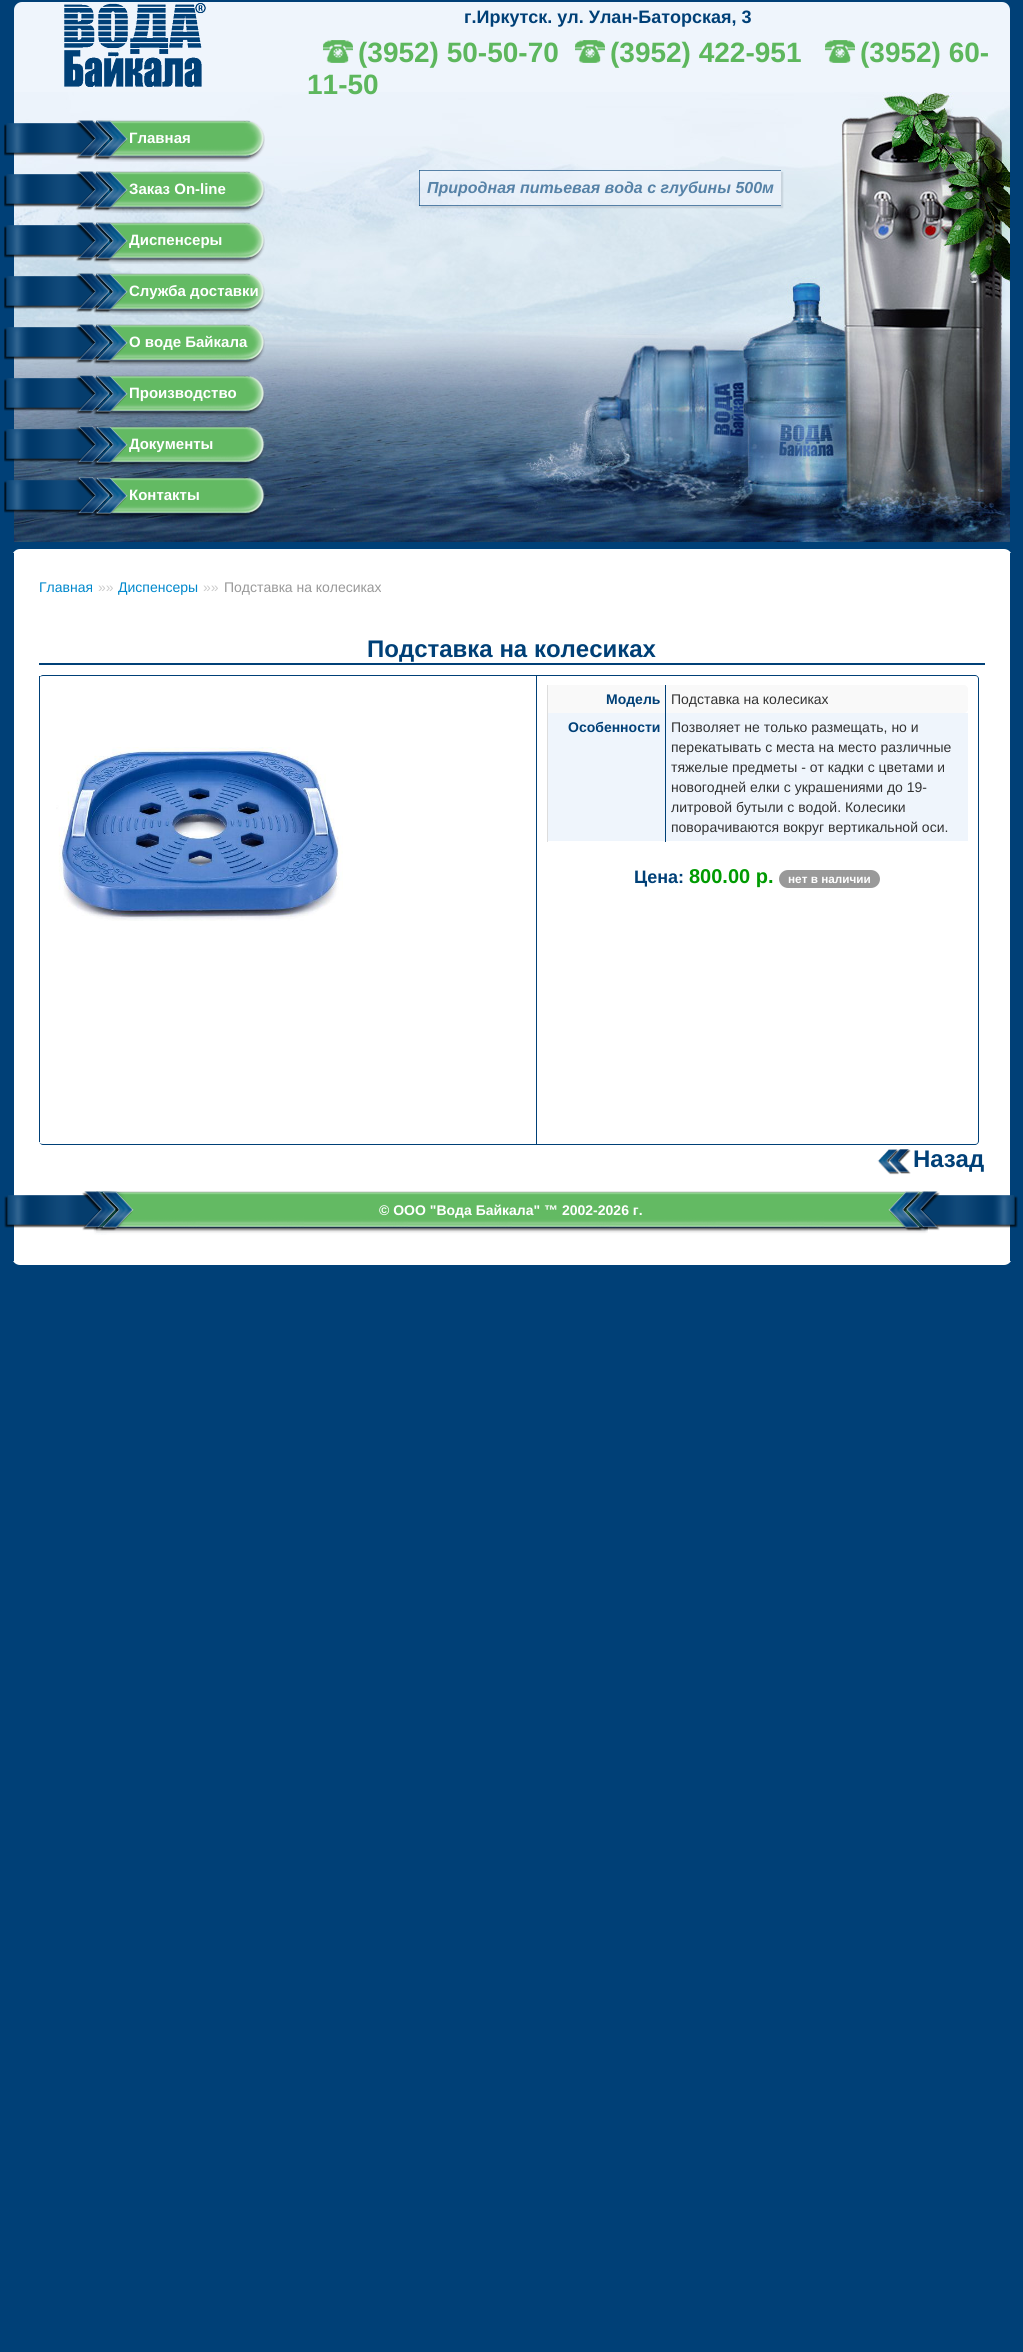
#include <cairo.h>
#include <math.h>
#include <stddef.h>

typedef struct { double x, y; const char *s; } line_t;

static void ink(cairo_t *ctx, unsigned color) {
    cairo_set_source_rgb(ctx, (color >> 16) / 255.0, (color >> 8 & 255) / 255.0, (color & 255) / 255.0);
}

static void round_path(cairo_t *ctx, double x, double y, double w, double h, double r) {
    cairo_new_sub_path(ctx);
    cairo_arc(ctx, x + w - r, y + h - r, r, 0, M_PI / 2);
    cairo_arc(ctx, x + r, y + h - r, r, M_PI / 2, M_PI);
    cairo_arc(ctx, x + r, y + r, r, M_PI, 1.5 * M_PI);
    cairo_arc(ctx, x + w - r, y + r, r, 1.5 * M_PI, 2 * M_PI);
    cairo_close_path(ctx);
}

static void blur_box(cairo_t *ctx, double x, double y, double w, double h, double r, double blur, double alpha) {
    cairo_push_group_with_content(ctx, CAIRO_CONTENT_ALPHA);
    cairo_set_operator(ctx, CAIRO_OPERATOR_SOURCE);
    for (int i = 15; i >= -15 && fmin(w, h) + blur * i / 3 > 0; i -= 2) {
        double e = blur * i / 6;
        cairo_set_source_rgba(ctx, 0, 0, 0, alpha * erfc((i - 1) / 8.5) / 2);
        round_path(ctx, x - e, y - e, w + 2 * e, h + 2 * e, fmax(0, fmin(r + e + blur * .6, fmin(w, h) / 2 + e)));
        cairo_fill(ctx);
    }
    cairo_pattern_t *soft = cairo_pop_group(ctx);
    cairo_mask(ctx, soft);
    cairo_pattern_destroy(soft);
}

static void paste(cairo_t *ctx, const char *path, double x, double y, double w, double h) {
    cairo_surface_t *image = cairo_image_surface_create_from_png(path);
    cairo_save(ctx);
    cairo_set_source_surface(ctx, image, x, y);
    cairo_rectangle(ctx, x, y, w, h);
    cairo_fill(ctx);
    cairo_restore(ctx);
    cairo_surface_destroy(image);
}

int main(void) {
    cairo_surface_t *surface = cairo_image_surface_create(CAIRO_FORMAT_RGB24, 1023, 2352);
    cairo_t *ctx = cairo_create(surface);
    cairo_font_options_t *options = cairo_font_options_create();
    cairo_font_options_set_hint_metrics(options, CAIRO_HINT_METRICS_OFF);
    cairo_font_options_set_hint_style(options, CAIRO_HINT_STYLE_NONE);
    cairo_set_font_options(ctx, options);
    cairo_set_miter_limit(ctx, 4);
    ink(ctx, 0x004077);
    cairo_paint(ctx);
    ink(ctx, 0xEFF5FC);
    round_path(ctx, 13, 1, 998, 547, 9);
    cairo_fill_preserve(ctx);
    ink(ctx, 0x004077);
    cairo_stroke(ctx);
    paste(ctx, "media/1.png", 64, 3, 142, 84);
    cairo_select_font_face(ctx, "Liberation Sans", CAIRO_FONT_SLANT_NORMAL, CAIRO_FONT_WEIGHT_BOLD);
    cairo_set_font_size(ctx, 18);
    cairo_move_to(ctx, 464, 23);
    cairo_show_text(ctx, "г.Иркутск. ул. Улан-Баторская, 3");
    paste(ctx, "media/2.png", 323, 40, 30, 23);
    cairo_set_font_size(ctx, 28);
    ink(ctx, 0x5DB75D);
    cairo_move_to(ctx, 358, 62);
    cairo_show_text(ctx, "(3952) 50-50-70");
    paste(ctx, "media/2.png", 575, 40, 30, 23);
    cairo_move_to(ctx, 610, 62);
    cairo_show_text(ctx, "(3952) 422-951");
    paste(ctx, "media/2.png", 825, 40, 30, 23);
    cairo_move_to(ctx, 860, 62);
    cairo_show_text(ctx, "(3952) 60-");
    paste(ctx, "media/3.png", 14, 92, 996, 450);
    cairo_move_to(ctx, 307, 94);
    cairo_show_text(ctx, "11-50");
    ink(ctx, 0x004077);
    cairo_rectangle(ctx, 14, 542, 996, 5);
    cairo_fill(ctx);
    paste(ctx, "media/4.png", 4, 120, 261, 42);
    cairo_set_font_size(ctx, 15);
    ink(ctx, 0xFFFFFF);
    cairo_move_to(ctx, 129, 143);
    cairo_show_text(ctx, "Главная");
    paste(ctx, "media/5.png", 4, 171, 261, 42);
    cairo_move_to(ctx, 129, 194);
    cairo_show_text(ctx, "Заказ On-line");
    paste(ctx, "media/6.png", 4, 222, 261, 42);
    cairo_move_to(ctx, 129, 245);
    cairo_show_text(ctx, "Диспенсеры");
    paste(ctx, "media/7.png", 4, 273, 261, 42);
    cairo_move_to(ctx, 129, 296);
    cairo_show_text(ctx, "Служба доставки");
    paste(ctx, "media/8.png", 4, 324, 261, 42);
    cairo_move_to(ctx, 129, 347);
    cairo_show_text(ctx, "О воде Байкала");
    paste(ctx, "media/9.png", 4, 375, 261, 42);
    cairo_move_to(ctx, 129, 398);
    cairo_show_text(ctx, "Производство");
    paste(ctx, "media/10.png", 4, 425, 261, 43);
    cairo_move_to(ctx, 129, 449);
    cairo_show_text(ctx, "Документы");
    paste(ctx, "media/11.png", 4, 476, 261, 43);
    cairo_move_to(ctx, 129, 500);
    cairo_show_text(ctx, "Контакты");
    cairo_save(ctx);
    cairo_set_fill_rule(ctx, CAIRO_FILL_RULE_EVEN_ODD);
    cairo_new_path(ctx);
    cairo_move_to(ctx, 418, 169);
    cairo_line_to(ctx, 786, 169);
    cairo_line_to(ctx, 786, 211);
    cairo_line_to(ctx, 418, 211);
    cairo_close_path(ctx);
    cairo_move_to(ctx, 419, 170);
    cairo_line_to(ctx, 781, 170);
    cairo_line_to(ctx, 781, 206);
    cairo_line_to(ctx, 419, 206);
    cairo_close_path(ctx);
    cairo_clip(ctx);
    ink(ctx, 0xBBC6CF);
    blur_box(ctx, 421, 172, 362, 36, 0, 0.5, 0.63);
    cairo_restore(ctx);
    cairo_set_source_rgba(ctx, 0.937, 0.961, 0.988, 0.63);
    cairo_rectangle(ctx, 419, 170, 362, 36);
    cairo_fill(ctx);
    cairo_set_source_rgba(ctx, 0, 0.251, 0.467, 0.63);
    cairo_rectangle(ctx, 419, 170, 362, 1);
    cairo_fill(ctx);
    cairo_rectangle(ctx, 419, 205, 362, 1);
    cairo_fill(ctx);
    cairo_rectangle(ctx, 419, 170, 1, 36);
    cairo_fill(ctx);
    cairo_select_font_face(ctx, "Liberation Sans", CAIRO_FONT_SLANT_ITALIC, CAIRO_FONT_WEIGHT_BOLD);
    cairo_set_font_size(ctx, 16);
    ink(ctx, 0x5682A7);
    cairo_move_to(ctx, 427, 193);
    cairo_show_text(ctx, "Природная питьевая вода с глубины 500м");
    ink(ctx, 0xFFFFFF);
    round_path(ctx, 12, 549, 1000, 716, 8);
    cairo_fill(ctx);
    ink(ctx, 0x004077);
    cairo_rectangle(ctx, 1010, 553, 2, 708);
    cairo_fill(ctx);
    cairo_rectangle(ctx, 12, 553, 2, 708);
    cairo_fill(ctx);
    cairo_select_font_face(ctx, "Liberation Sans", CAIRO_FONT_SLANT_NORMAL, CAIRO_FONT_WEIGHT_NORMAL);
    cairo_set_font_size(ctx, 14);
    ink(ctx, 0x0088CC);
    cairo_move_to(ctx, 39, 592);
    cairo_show_text(ctx, "Главная");
    ink(ctx, 0xCCCCCC);
    cairo_move_to(ctx, 98, 592);
    cairo_show_text(ctx, "»»");
    ink(ctx, 0x0088CC);
    cairo_move_to(ctx, 118, 592);
    cairo_show_text(ctx, "Диспенсеры");
    ink(ctx, 0xCCCCCC);
    cairo_move_to(ctx, 203, 592);
    cairo_show_text(ctx, "»»");
    ink(ctx, 0x999999);
    cairo_move_to(ctx, 224, 592);
    cairo_show_text(ctx, "Подставка на колесиках");
    ink(ctx, 0x004077);
    cairo_rectangle(ctx, 39, 663, 946, 2);
    cairo_fill(ctx);
    cairo_select_font_face(ctx, "Liberation Sans", CAIRO_FONT_SLANT_NORMAL, CAIRO_FONT_WEIGHT_BOLD);
    cairo_set_font_size(ctx, 24);
    cairo_move_to(ctx, 367, 657);
    cairo_show_text(ctx, "Подставка на колесиках");
    cairo_set_fill_rule(ctx, CAIRO_FILL_RULE_EVEN_ODD);
    cairo_new_path(ctx);
    cairo_move_to(ctx, 43, 675);
    cairo_line_to(ctx, 975, 675);
    cairo_curve_to(ctx, 977, 675, 979, 677, 979, 679);
    cairo_line_to(ctx, 979, 1141);
    cairo_curve_to(ctx, 979, 1143, 977, 1145, 975, 1145);
    cairo_line_to(ctx, 43, 1145);
    cairo_curve_to(ctx, 41, 1145, 39, 1143, 39, 1141);
    cairo_line_to(ctx, 39, 679);
    cairo_curve_to(ctx, 39, 677, 41, 675, 43, 675);
    cairo_close_path(ctx);
    cairo_move_to(ctx, 43, 676);
    cairo_line_to(ctx, 975, 676);
    cairo_curve_to(ctx, 977, 676, 978, 677, 978, 679);
    cairo_line_to(ctx, 978, 1141);
    cairo_curve_to(ctx, 978, 1143, 977, 1144, 975, 1144);
    cairo_line_to(ctx, 43, 1144);
    cairo_curve_to(ctx, 41, 1144, 39, 1143, 39, 1141);
    cairo_line_to(ctx, 39, 679);
    cairo_curve_to(ctx, 39, 677, 41, 676, 43, 676);
    cairo_close_path(ctx);
    cairo_fill(ctx);
    cairo_rectangle(ctx, 39, 676, 1, 466);
    cairo_fill(ctx);
    paste(ctx, "media/12.png", 56, 747, 287, 174);
    cairo_rectangle(ctx, 536, 676, 1, 468);
    cairo_fill(ctx);
    ink(ctx, 0xF9F9F9);
    cairo_rectangle(ctx, 548, 685, 117, 28);
    cairo_fill(ctx);
    cairo_set_font_size(ctx, 14);
    ink(ctx, 0x004077);
    cairo_move_to(ctx, 606, 704);
    cairo_show_text(ctx, "Модель");
    ink(ctx, 0xF9F9F9);
    cairo_new_path(ctx);
    cairo_move_to(ctx, 666, 685);
    cairo_line_to(ctx, 964, 685);
    cairo_curve_to(ctx, 966, 685, 968, 687, 968, 689);
    cairo_line_to(ctx, 968, 709);
    cairo_curve_to(ctx, 968, 711, 966, 713, 964, 713);
    cairo_line_to(ctx, 666, 713);
    cairo_close_path(ctx);
    cairo_fill(ctx);
    cairo_select_font_face(ctx, "Liberation Sans", CAIRO_FONT_SLANT_NORMAL, CAIRO_FONT_WEIGHT_NORMAL);
    ink(ctx, 0x333333);
    cairo_move_to(ctx, 671, 704);
    cairo_show_text(ctx, "Подставка на колесиках");
    ink(ctx, 0xEFF5FC);
    cairo_rectangle(ctx, 548, 713, 420, 128);
    cairo_fill(ctx);
    ink(ctx, 0xDDDDDD);
    cairo_rectangle(ctx, 547, 685, 1, 157);
    cairo_fill(ctx);
    cairo_select_font_face(ctx, "Liberation Sans", CAIRO_FONT_SLANT_NORMAL, CAIRO_FONT_WEIGHT_BOLD);
    ink(ctx, 0x004077);
    cairo_move_to(ctx, 568, 732);
    cairo_show_text(ctx, "Особенности");
    cairo_rectangle(ctx, 665, 685, 1, 157);
    cairo_fill(ctx);
    cairo_select_font_face(ctx, "Liberation Sans", CAIRO_FONT_SLANT_NORMAL, CAIRO_FONT_WEIGHT_NORMAL);
    ink(ctx, 0x333333);
    {
        static const line_t items[] = {
            {671, 732, "Позволяет не только размещать, но и"},
            {671, 752, "перекатывать с места на место различные"},
            {671, 772, "тяжелые предметы - от кадки с цветами и"},
            {671, 792, "новогодней елки с украшениями до 19-"},
            {671, 812, "литровой бутыли с водой. Колесики"},
            {671, 832, "поворачиваются вокруг вертикальной оси."},
        };
        for (size_t i = 0; i < sizeof items / sizeof *items; i++) {
            cairo_move_to(ctx, items[i].x, items[i].y);
            cairo_show_text(ctx, items[i].s);
        }
    }
    cairo_select_font_face(ctx, "Liberation Sans", CAIRO_FONT_SLANT_NORMAL, CAIRO_FONT_WEIGHT_BOLD);
    cairo_set_font_size(ctx, 18);
    ink(ctx, 0x004077);
    cairo_move_to(ctx, 634, 883);
    cairo_show_text(ctx, "Цена:");
    cairo_set_font_size(ctx, 20);
    ink(ctx, 0x009B01);
    cairo_move_to(ctx, 689, 883);
    cairo_show_text(ctx, "800.00 р.");
    ink(ctx, 0x999999);
    round_path(ctx, 779, 870, 101, 18, 9);
    cairo_fill(ctx);
    cairo_set_font_size(ctx, 11.75);
    ink(ctx, 0xFFFFFF);
    cairo_move_to(ctx, 788, 883);
    cairo_show_text(ctx, "нет в наличии");
    paste(ctx, "media/13.png", 877, 1149, 34, 26);
    cairo_set_font_size(ctx, 24);
    ink(ctx, 0x004077);
    cairo_move_to(ctx, 913, 1167);
    cairo_show_text(ctx, "Назад");
    paste(ctx, "media/14.png", 4, 1190, 1014, 45);
    cairo_set_font_size(ctx, 14);
    ink(ctx, 0xFFFFFF);
    cairo_move_to(ctx, 379, 1215);
    cairo_show_text(ctx, "© ООО \"Вода Байкала\" ™ 2002-2026 г.");
    cairo_surface_write_to_png(surface, "image.png");
    cairo_font_options_destroy(options);
    cairo_destroy(ctx);
    cairo_surface_destroy(surface);
    return 0;
}
